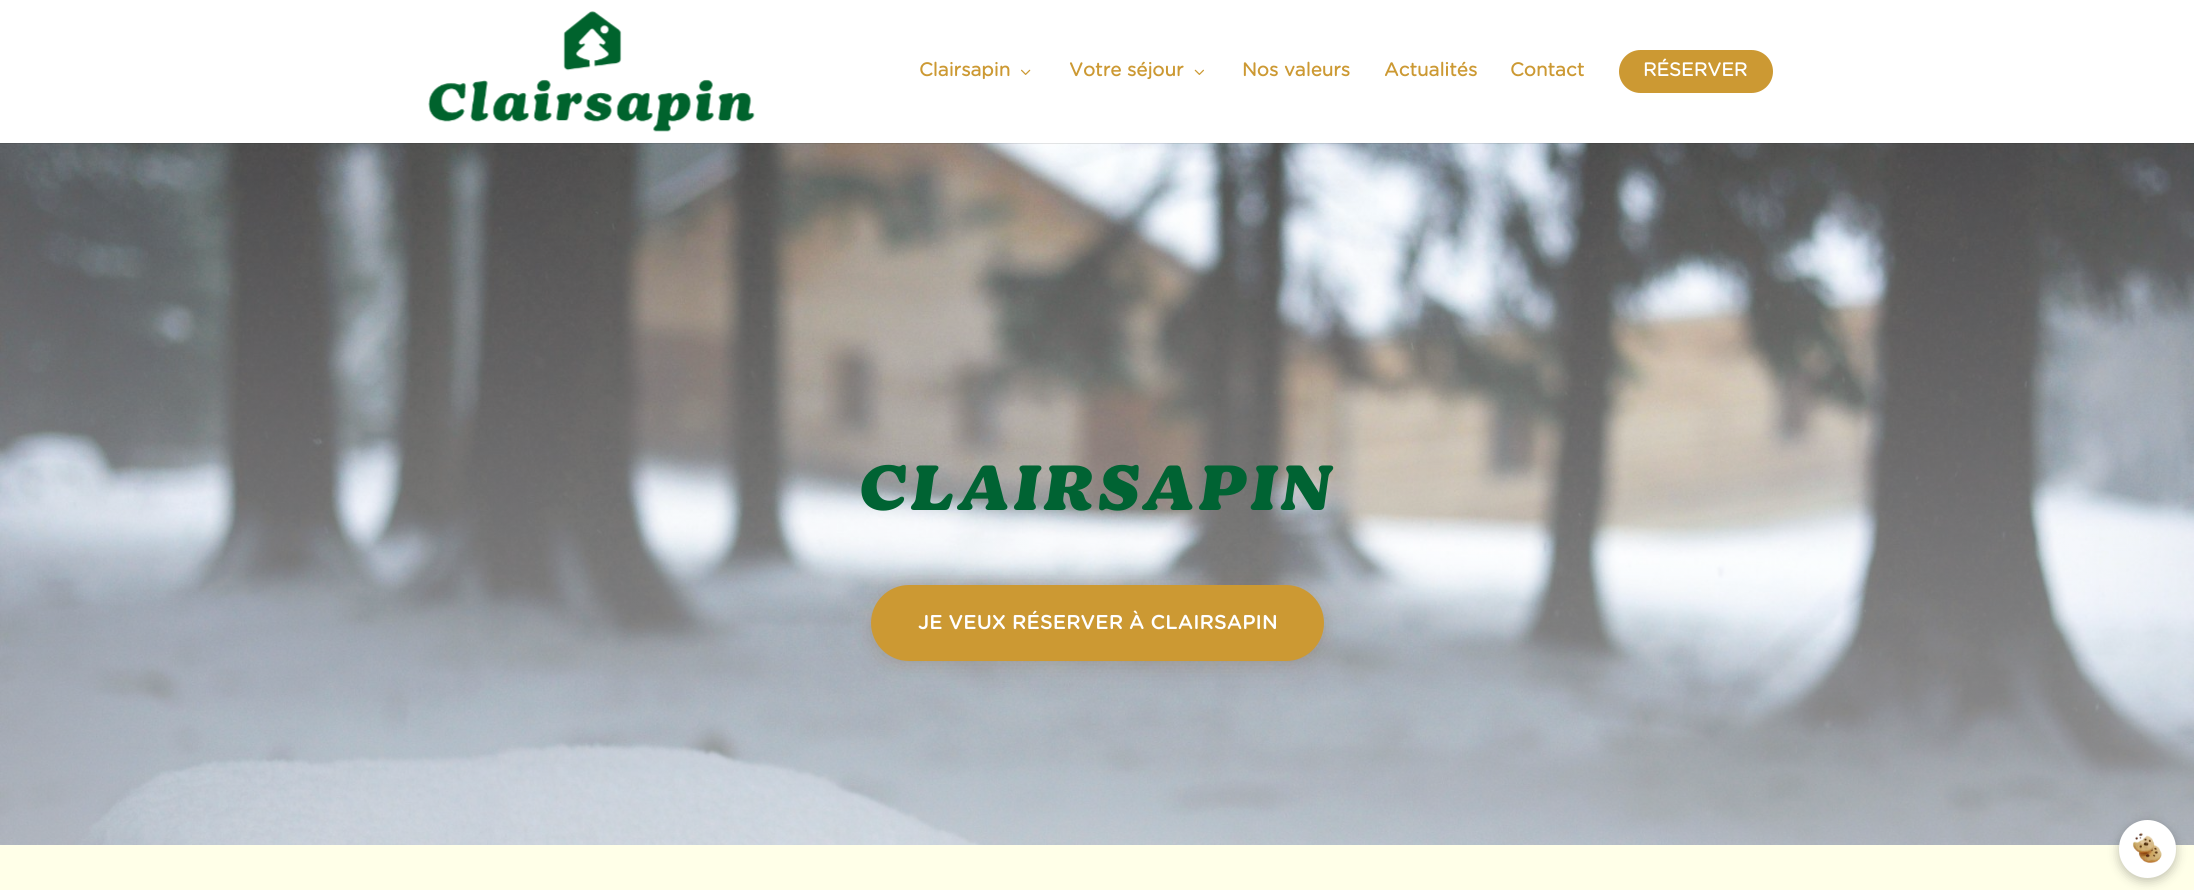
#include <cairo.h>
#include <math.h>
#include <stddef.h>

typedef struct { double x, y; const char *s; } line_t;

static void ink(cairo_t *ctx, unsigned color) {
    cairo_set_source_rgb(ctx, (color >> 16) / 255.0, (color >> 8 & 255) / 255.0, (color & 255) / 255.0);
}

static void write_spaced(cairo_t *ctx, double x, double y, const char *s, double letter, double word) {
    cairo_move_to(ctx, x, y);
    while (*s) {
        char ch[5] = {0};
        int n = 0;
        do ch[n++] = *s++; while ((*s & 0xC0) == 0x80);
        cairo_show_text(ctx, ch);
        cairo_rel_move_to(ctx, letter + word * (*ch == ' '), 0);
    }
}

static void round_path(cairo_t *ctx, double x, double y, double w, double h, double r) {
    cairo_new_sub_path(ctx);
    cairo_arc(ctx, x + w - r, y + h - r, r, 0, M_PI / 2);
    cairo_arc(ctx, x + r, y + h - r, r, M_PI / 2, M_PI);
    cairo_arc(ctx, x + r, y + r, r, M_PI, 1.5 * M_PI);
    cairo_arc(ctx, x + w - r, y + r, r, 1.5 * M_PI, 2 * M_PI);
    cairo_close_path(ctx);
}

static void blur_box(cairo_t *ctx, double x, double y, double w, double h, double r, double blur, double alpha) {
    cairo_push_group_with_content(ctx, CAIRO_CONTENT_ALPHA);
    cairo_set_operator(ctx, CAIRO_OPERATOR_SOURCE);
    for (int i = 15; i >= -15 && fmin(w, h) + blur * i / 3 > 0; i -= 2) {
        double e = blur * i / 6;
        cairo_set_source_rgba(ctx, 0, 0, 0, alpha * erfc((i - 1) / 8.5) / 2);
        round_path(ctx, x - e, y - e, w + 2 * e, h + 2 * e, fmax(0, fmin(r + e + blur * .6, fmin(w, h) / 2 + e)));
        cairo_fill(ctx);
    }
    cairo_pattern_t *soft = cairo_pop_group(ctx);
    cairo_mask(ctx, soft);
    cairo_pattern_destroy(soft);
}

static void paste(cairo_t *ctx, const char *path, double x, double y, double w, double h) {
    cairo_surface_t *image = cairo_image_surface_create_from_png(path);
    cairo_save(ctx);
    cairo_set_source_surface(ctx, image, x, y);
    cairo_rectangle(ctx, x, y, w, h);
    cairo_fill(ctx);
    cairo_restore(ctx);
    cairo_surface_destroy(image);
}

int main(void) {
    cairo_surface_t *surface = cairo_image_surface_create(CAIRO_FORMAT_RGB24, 2194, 890);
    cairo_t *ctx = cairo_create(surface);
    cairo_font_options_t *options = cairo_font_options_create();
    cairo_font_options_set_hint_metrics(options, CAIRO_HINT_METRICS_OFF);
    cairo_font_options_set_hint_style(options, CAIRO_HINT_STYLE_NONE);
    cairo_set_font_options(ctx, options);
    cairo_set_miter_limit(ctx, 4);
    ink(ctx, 0xFFFFFF);
    cairo_paint(ctx);
    paste(ctx, "media/4.png", 0, 143, 2194, 702);
    cairo_set_source_rgba(ctx, 0, 0, 0, 0.1);
    cairo_rectangle(ctx, 0, 143, 2194, 1);
    cairo_fill(ctx);
    paste(ctx, "media/1.png", 428, 11, 327, 121);
    cairo_select_font_face(ctx, "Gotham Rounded", CAIRO_FONT_SLANT_NORMAL, CAIRO_FONT_WEIGHT_BOLD);
    cairo_set_font_size(ctx, 18.75);
    ink(ctx, 0xCC9933);
    cairo_move_to(ctx, 919, 76);
    cairo_show_text(ctx, "Clairsapin");
    paste(ctx, "media/2.png", 1021, 69, 10, 6);
    cairo_move_to(ctx, 1069, 76);
    cairo_show_text(ctx, "Votre séjour");
    paste(ctx, "media/3.png", 1194, 69, 10, 6);
    {
        static const line_t items[] = {
            {1242, 76, "Nos valeurs"},
            {1384, 76, "Actualités"},
            {1510, 76, "Contact"},
        };
        for (size_t i = 0; i < sizeof items / sizeof *items; i++) {
            cairo_move_to(ctx, items[i].x, items[i].y);
            cairo_show_text(ctx, items[i].s);
        }
    }
    round_path(ctx, 1619, 50, 154, 43, 21.5);
    cairo_fill(ctx);
    ink(ctx, 0xFFFFFF);
    cairo_move_to(ctx, 1643, 76);
    cairo_show_text(ctx, "RÉSERVER");
    cairo_select_font_face(ctx, "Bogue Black", CAIRO_FONT_SLANT_ITALIC, CAIRO_FONT_WEIGHT_NORMAL);
    cairo_set_font_size(ctx, 65);
    ink(ctx, 0x006333);
    write_spaced(ctx, 859, 510, "CLAIRSAPIN", 3.75, 0);
    ink(ctx, 0x663300);
    blur_box(ctx, 871, 588, 453, 76, 38, 11, 0.19);
    ink(ctx, 0xCC9933);
    round_path(ctx, 872.5, 586.5, 450, 73, 36.5);
    cairo_fill_preserve(ctx);
    cairo_set_line_width(ctx, 3);
    cairo_stroke(ctx);
    cairo_select_font_face(ctx, "Gotham Rounded Medium", CAIRO_FONT_SLANT_NORMAL, CAIRO_FONT_WEIGHT_NORMAL);
    cairo_set_font_size(ctx, 20);
    ink(ctx, 0xFFFFFF);
    cairo_move_to(ctx, 918, 629);
    cairo_show_text(ctx, "JE VEUX RÉSERVER À CLAIRSAPIN");
    ink(ctx, 0xFFFFE8);
    cairo_rectangle(ctx, 0, 845, 2194, 45);
    cairo_fill(ctx);
    ink(ctx, 0x000000);
    blur_box(ctx, 2119, 824, 57, 57, 28.5, 5.5, 0.25);
    ink(ctx, 0xFFFFFF);
    round_path(ctx, 2119, 820, 57, 58, 28.5);
    cairo_fill(ctx);
    paste(ctx, "media/5.png", 2132, 832, 30, 31);
    cairo_surface_write_to_png(surface, "image.png");
    cairo_font_options_destroy(options);
    cairo_destroy(ctx);
    cairo_surface_destroy(surface);
    return 0;
}
